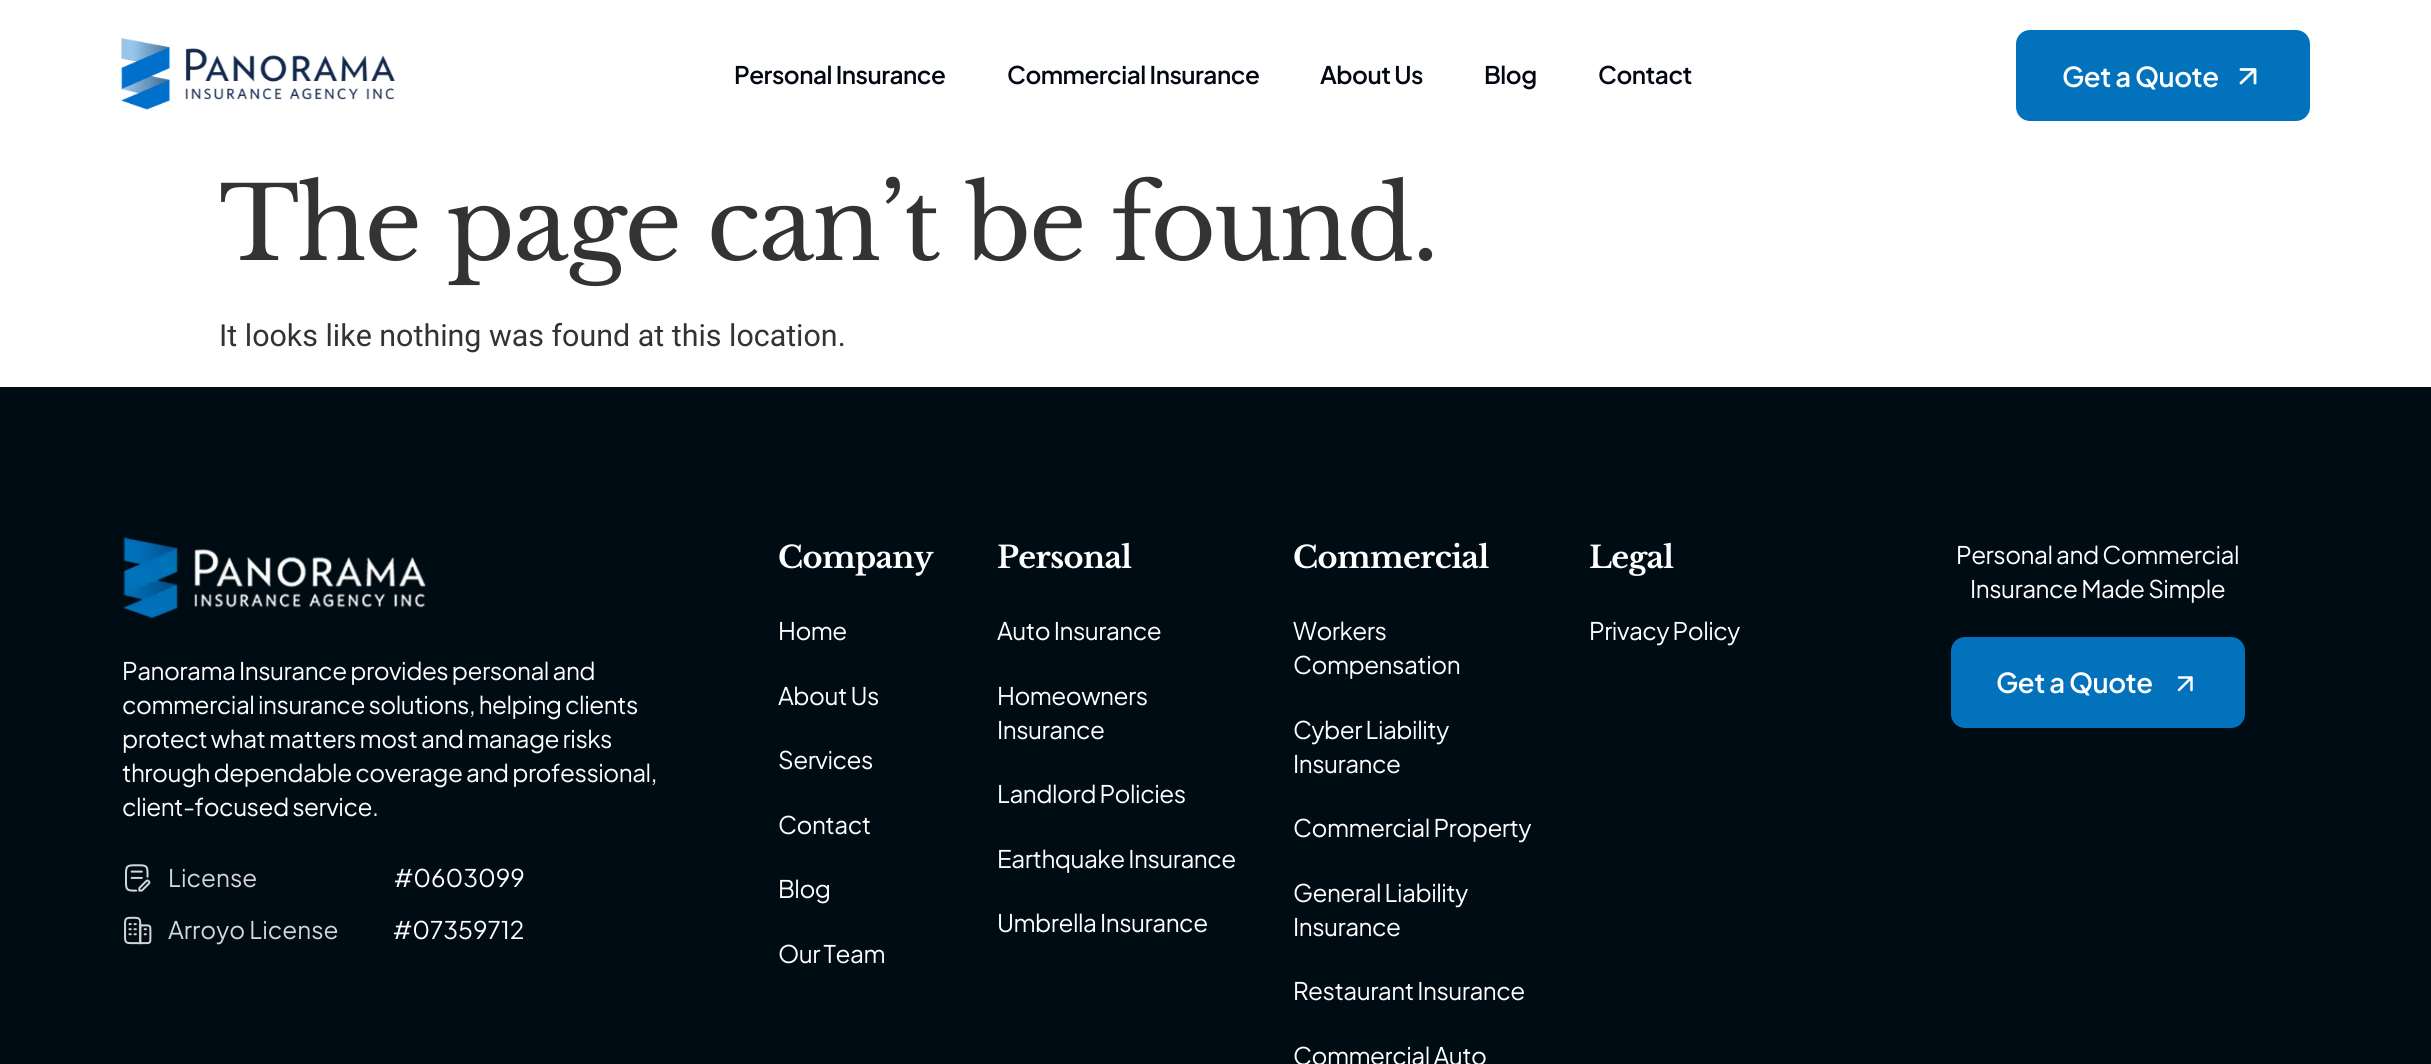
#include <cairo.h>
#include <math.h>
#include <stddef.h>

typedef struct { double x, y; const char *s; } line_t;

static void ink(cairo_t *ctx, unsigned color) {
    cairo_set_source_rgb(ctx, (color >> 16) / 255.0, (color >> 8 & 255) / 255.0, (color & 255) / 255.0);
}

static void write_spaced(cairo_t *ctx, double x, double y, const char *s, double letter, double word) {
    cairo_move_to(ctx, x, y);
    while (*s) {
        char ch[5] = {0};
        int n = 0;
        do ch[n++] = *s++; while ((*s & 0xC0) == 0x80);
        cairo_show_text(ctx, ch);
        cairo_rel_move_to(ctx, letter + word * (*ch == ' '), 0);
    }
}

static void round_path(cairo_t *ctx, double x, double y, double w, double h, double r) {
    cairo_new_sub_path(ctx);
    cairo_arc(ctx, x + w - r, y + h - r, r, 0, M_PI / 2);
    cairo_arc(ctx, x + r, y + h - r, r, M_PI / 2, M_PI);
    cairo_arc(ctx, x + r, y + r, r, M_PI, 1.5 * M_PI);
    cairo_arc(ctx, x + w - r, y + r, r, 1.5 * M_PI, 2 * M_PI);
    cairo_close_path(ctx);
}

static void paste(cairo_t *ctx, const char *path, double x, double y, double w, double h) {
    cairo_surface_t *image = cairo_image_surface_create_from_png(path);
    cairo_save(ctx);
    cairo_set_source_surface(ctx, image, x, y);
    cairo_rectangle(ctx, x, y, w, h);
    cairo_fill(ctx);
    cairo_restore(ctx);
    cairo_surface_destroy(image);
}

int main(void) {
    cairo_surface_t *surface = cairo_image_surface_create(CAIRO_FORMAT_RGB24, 2431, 1064);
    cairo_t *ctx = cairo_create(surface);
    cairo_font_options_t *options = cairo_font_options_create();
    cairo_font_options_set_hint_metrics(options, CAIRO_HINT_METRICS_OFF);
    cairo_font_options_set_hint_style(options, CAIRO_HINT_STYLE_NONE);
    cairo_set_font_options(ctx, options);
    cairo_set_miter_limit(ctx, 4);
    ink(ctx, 0xFFFFFF);
    cairo_paint(ctx);
    paste(ctx, "media/1.png", 121, 38, 275, 72);
    cairo_select_font_face(ctx, "Plus Jakarta Sans SemiBold", CAIRO_FONT_SLANT_NORMAL, CAIRO_FONT_WEIGHT_NORMAL);
    cairo_set_font_size(ctx, 24.3);
    ink(ctx, 0x030712);
    {
        static const line_t items[] = {
            {734, 84, "Personal Insurance"},
            {1007, 84, "Commercial Insurance"},
            {1320, 84, "About Us"},
            {1484, 84, "Blog"},
            {1598, 84, "Contact"},
        };
        for (size_t i = 0; i < sizeof items / sizeof *items; i++) {
            write_spaced(ctx, items[i].x, items[i].y, items[i].s, -0.5, 0);
        }
    }
    ink(ctx, 0x0172BB);
    round_path(ctx, 2017, 31, 292, 89, 13);
    cairo_fill_preserve(ctx);
    cairo_stroke(ctx);
    cairo_set_font_size(ctx, 27.5);
    ink(ctx, 0xFFFFFF);
    write_spaced(ctx, 2062, 87, "Get a Quote", -0.5, 0);
    cairo_new_path(ctx);
    cairo_move_to(ctx, 2241, 69.5);
    cairo_line_to(ctx, 2255, 69.5);
    cairo_move_to(ctx, 2255, 69.5);
    cairo_line_to(ctx, 2255, 83);
    cairo_move_to(ctx, 2255, 69.5);
    cairo_line_to(ctx, 2241, 83);
    cairo_set_line_width(ctx, 2.8);
    cairo_set_line_cap(ctx, CAIRO_LINE_CAP_ROUND);
    cairo_set_line_join(ctx, CAIRO_LINE_JOIN_ROUND);
    cairo_stroke(ctx);
    cairo_select_font_face(ctx, "Libre Baskerville", CAIRO_FONT_SLANT_NORMAL, CAIRO_FONT_WEIGHT_NORMAL);
    cairo_set_font_size(ctx, 100.3);
    ink(ctx, 0x333333);
    write_spaced(ctx, 219, 260, "The page can’t be found.", -2, 0);
    cairo_select_font_face(ctx, "Roboto", CAIRO_FONT_SLANT_NORMAL, CAIRO_FONT_WEIGHT_NORMAL);
    cairo_set_font_size(ctx, 30.4);
    cairo_move_to(ctx, 219, 346);
    cairo_show_text(ctx, "It looks like nothing was found at this location.");
    ink(ctx, 0x000C14);
    cairo_rectangle(ctx, 0, 387, 2431, 677);
    cairo_fill(ctx);
    cairo_select_font_face(ctx, "Libre Baskerville", CAIRO_FONT_SLANT_NORMAL, CAIRO_FONT_WEIGHT_BOLD);
    ink(ctx, 0xFFFFFF);
    write_spaced(ctx, 778, 568, "Company", -0.6, 0);
    cairo_select_font_face(ctx, "Plus Jakarta Sans", CAIRO_FONT_SLANT_NORMAL, CAIRO_FONT_WEIGHT_NORMAL);
    cairo_set_font_size(ctx, 24.3);
    {
        static const line_t items[] = {
            {778, 640, "Home"},
            {778, 705, "About Us"},
            {778, 769, "Services"},
            {778, 834, "Contact"},
            {778, 898, "Blog"},
            {778, 963, "Our Team"},
        };
        for (size_t i = 0; i < sizeof items / sizeof *items; i++) {
            write_spaced(ctx, items[i].x, items[i].y, items[i].s, -0.5, 0);
        }
    }
    cairo_select_font_face(ctx, "Libre Baskerville", CAIRO_FONT_SLANT_NORMAL, CAIRO_FONT_WEIGHT_BOLD);
    cairo_set_font_size(ctx, 30.4);
    write_spaced(ctx, 997, 568, "Personal", -0.6, 0);
    cairo_select_font_face(ctx, "Plus Jakarta Sans", CAIRO_FONT_SLANT_NORMAL, CAIRO_FONT_WEIGHT_NORMAL);
    cairo_set_font_size(ctx, 24.3);
    {
        static const line_t items[] = {
            {997, 640, "Auto Insurance"},
            {997, 705, "Homeowners"},
            {997, 739, "Insurance"},
            {997, 803, "Landlord Policies"},
            {997, 868, "Earthquake Insurance"},
            {997, 932, "Umbrella Insurance"},
        };
        for (size_t i = 0; i < sizeof items / sizeof *items; i++) {
            write_spaced(ctx, items[i].x, items[i].y, items[i].s, -0.5, 0);
        }
    }
    cairo_select_font_face(ctx, "Libre Baskerville", CAIRO_FONT_SLANT_NORMAL, CAIRO_FONT_WEIGHT_BOLD);
    cairo_set_font_size(ctx, 30.4);
    write_spaced(ctx, 1293, 568, "Commercial", -0.6, 0);
    cairo_select_font_face(ctx, "Plus Jakarta Sans", CAIRO_FONT_SLANT_NORMAL, CAIRO_FONT_WEIGHT_NORMAL);
    cairo_set_font_size(ctx, 24.3);
    {
        static const line_t items[] = {
            {1293, 640, "Workers"},
            {1293, 674, "Compensation"},
            {1293, 739, "Cyber Liability"},
            {1293, 773, "Insurance"},
            {1293, 837, "Commercial Property"},
            {1293, 902, "General Liability"},
            {1293, 936, "Insurance"},
            {1293, 1000, "Restaurant Insurance"},
            {1293, 1065, "Commercial Auto"},
        };
        for (size_t i = 0; i < sizeof items / sizeof *items; i++) {
            write_spaced(ctx, items[i].x, items[i].y, items[i].s, -0.5, 0);
        }
    }
    cairo_select_font_face(ctx, "Libre Baskerville", CAIRO_FONT_SLANT_NORMAL, CAIRO_FONT_WEIGHT_BOLD);
    cairo_set_font_size(ctx, 30.4);
    write_spaced(ctx, 1589, 568, "Legal", -0.6, 0);
    cairo_select_font_face(ctx, "Plus Jakarta Sans", CAIRO_FONT_SLANT_NORMAL, CAIRO_FONT_WEIGHT_NORMAL);
    cairo_set_font_size(ctx, 24.3);
    {
        static const line_t items[] = {
            {1589, 640, "Privacy Policy"},
            {1956, 564, "Personal and Commercial"},
            {1970, 598, "Insurance Made Simple"},
        };
        for (size_t i = 0; i < sizeof items / sizeof *items; i++) {
            write_spaced(ctx, items[i].x, items[i].y, items[i].s, -0.5, 0);
        }
    }
    ink(ctx, 0x0172BB);
    round_path(ctx, 1952, 638, 292, 89, 13);
    cairo_fill_preserve(ctx);
    cairo_set_line_width(ctx, 2);
    cairo_set_line_cap(ctx, CAIRO_LINE_CAP_BUTT);
    cairo_set_line_join(ctx, CAIRO_LINE_JOIN_MITER);
    cairo_stroke(ctx);
    cairo_select_font_face(ctx, "Plus Jakarta Sans SemiBold", CAIRO_FONT_SLANT_NORMAL, CAIRO_FONT_WEIGHT_NORMAL);
    cairo_set_font_size(ctx, 27.5);
    ink(ctx, 0xFFFFFF);
    write_spaced(ctx, 1996, 693, "Get a Quote", -0.5, 0);
    cairo_new_path(ctx);
    cairo_move_to(ctx, 2179, 677.5);
    cairo_line_to(ctx, 2191.5, 677.5);
    cairo_move_to(ctx, 2191.5, 677.5);
    cairo_line_to(ctx, 2191.5, 690);
    cairo_move_to(ctx, 2191.5, 677.5);
    cairo_line_to(ctx, 2179, 690);
    cairo_set_line_width(ctx, 2.5);
    cairo_set_line_cap(ctx, CAIRO_LINE_CAP_ROUND);
    cairo_set_line_join(ctx, CAIRO_LINE_JOIN_ROUND);
    cairo_stroke(ctx);
    paste(ctx, "media/2.png", 123, 537, 303, 81);
    cairo_select_font_face(ctx, "Plus Jakarta Sans", CAIRO_FONT_SLANT_NORMAL, CAIRO_FONT_WEIGHT_NORMAL);
    cairo_set_font_size(ctx, 24.3);
    {
        static const line_t items[] = {
            {122, 680, "Panorama Insurance provides personal and"},
            {122, 714, "commercial insurance solutions, helping clients"},
            {122, 748, "protect what matters most and manage risks"},
            {122, 782, "through dependable coverage and professional,"},
            {122, 816, "client-focused service."},
        };
        for (size_t i = 0; i < sizeof items / sizeof *items; i++) {
            write_spaced(ctx, items[i].x, items[i].y, items[i].s, -0.5, 0);
        }
    }
    paste(ctx, "media/3.png", 125, 864, 26, 28);
    ink(ctx, 0xD4D6D7);
    cairo_move_to(ctx, 168, 887);
    cairo_show_text(ctx, "License");
    ink(ctx, 0xFFFFFF);
    cairo_move_to(ctx, 394, 887);
    cairo_show_text(ctx, "#0603099");
    paste(ctx, "media/4.png", 124, 916, 28, 29);
    ink(ctx, 0xD4D6D7);
    cairo_move_to(ctx, 168, 939);
    cairo_show_text(ctx, "Arroyo License");
    ink(ctx, 0xFFFFFF);
    cairo_move_to(ctx, 393, 939);
    cairo_show_text(ctx, "#07359712");
    cairo_surface_write_to_png(surface, "image.png");
    cairo_font_options_destroy(options);
    cairo_destroy(ctx);
    cairo_surface_destroy(surface);
    return 0;
}
